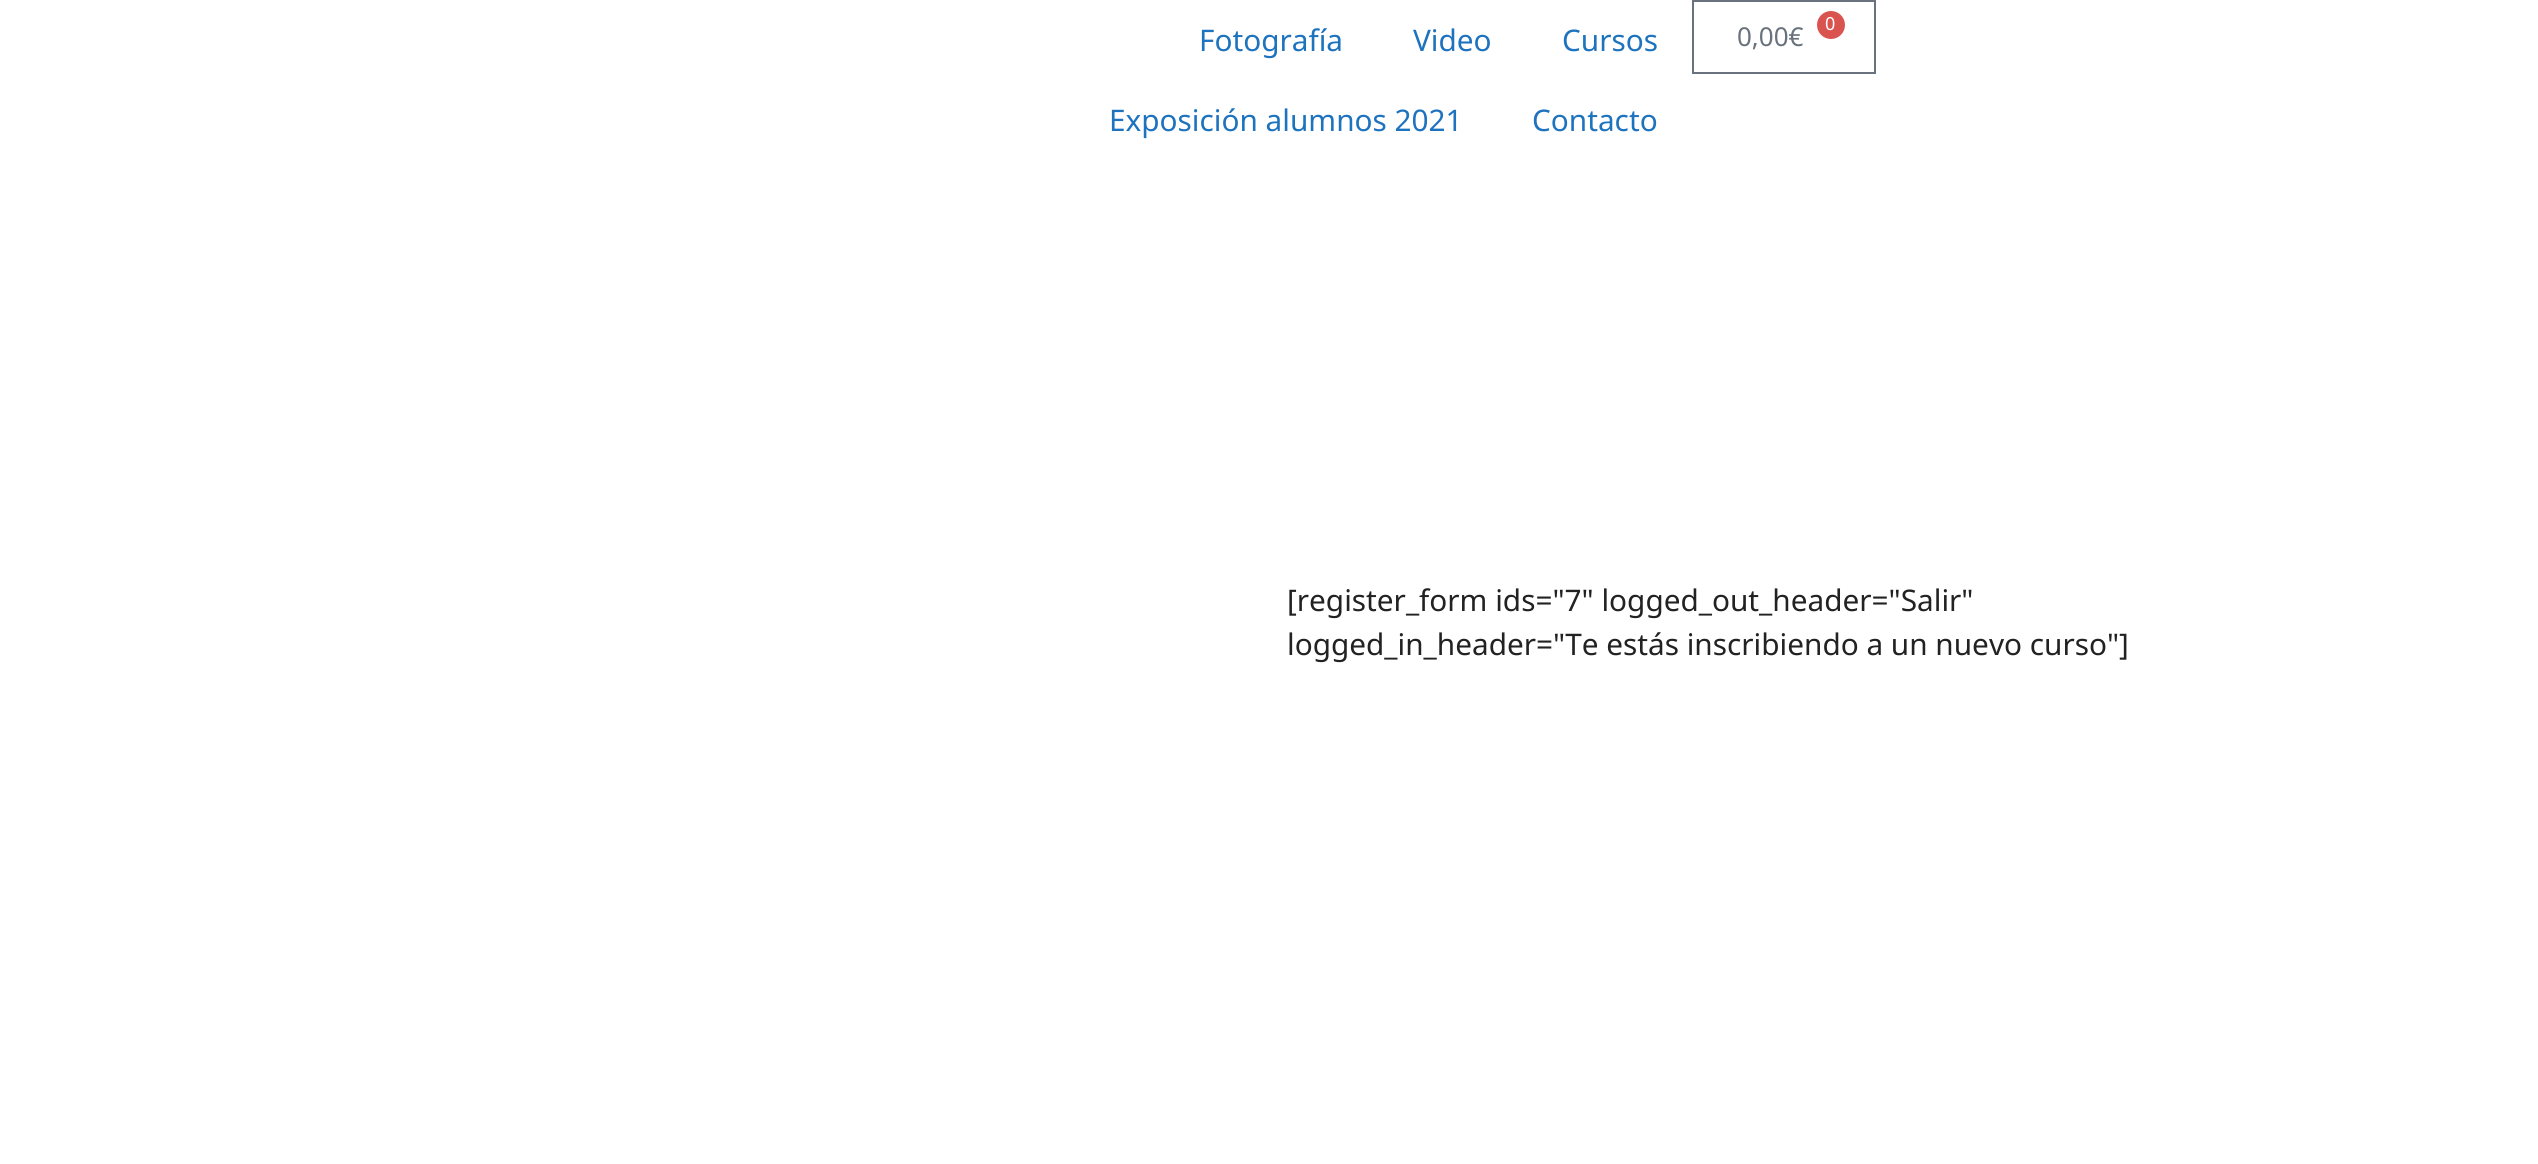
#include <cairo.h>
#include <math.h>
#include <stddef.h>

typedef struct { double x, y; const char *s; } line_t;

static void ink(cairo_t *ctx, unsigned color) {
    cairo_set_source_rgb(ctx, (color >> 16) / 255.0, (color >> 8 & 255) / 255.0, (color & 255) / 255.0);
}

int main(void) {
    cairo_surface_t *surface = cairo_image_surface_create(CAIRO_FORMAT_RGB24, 2538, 1164);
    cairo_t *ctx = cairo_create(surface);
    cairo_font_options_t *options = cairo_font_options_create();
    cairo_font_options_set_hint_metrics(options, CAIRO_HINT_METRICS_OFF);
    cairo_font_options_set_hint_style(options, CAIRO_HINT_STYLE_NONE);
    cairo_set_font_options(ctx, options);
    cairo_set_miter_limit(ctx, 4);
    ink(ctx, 0xFFFFFF);
    cairo_paint(ctx);
    cairo_select_font_face(ctx, "Noto Sans", CAIRO_FONT_SLANT_NORMAL, CAIRO_FONT_WEIGHT_NORMAL);
    cairo_set_font_size(ctx, 29.75);
    ink(ctx, 0x1E73BE);
    {
        static const line_t items[] = {
            {1199, 51, "Fotografía"},
            {1413, 51, "Video"},
            {1562, 51, "Cursos"},
            {1109, 131, "Exposición alumnos 2021"},
            {1532, 131, "Contacto"},
        };
        for (size_t i = 0; i < sizeof items / sizeof *items; i++) {
            cairo_move_to(ctx, items[i].x, items[i].y);
            cairo_show_text(ctx, items[i].s);
        }
    }
    cairo_rectangle(ctx, 1693, 1, 182, 72);
    ink(ctx, 0x69727D);
    cairo_stroke(ctx);
    ink(ctx, 0xD9534F);
    cairo_arc(ctx, 1831, 25, 14, 0, 2 * M_PI);
    cairo_fill(ctx);
    cairo_set_font_size(ctx, 18);
    ink(ctx, 0xFFFFFF);
    cairo_move_to(ctx, 1825, 30);
    cairo_show_text(ctx, "0");
    cairo_set_font_size(ctx, 26);
    ink(ctx, 0x69727D);
    cairo_move_to(ctx, 1737, 46);
    cairo_show_text(ctx, "0,00€");
    cairo_set_font_size(ctx, 29.75);
    ink(ctx, 0x222222);
    cairo_move_to(ctx, 1287, 611);
    cairo_show_text(ctx, "[register_form ids=\"7\" logged_out_header=\"Salir\"");
    cairo_move_to(ctx, 1287, 655);
    cairo_show_text(ctx, "logged_in_header=\"Te estás inscribiendo a un nuevo curso\"]");
    cairo_surface_write_to_png(surface, "image.png");
    cairo_font_options_destroy(options);
    cairo_destroy(ctx);
    cairo_surface_destroy(surface);
    return 0;
}
